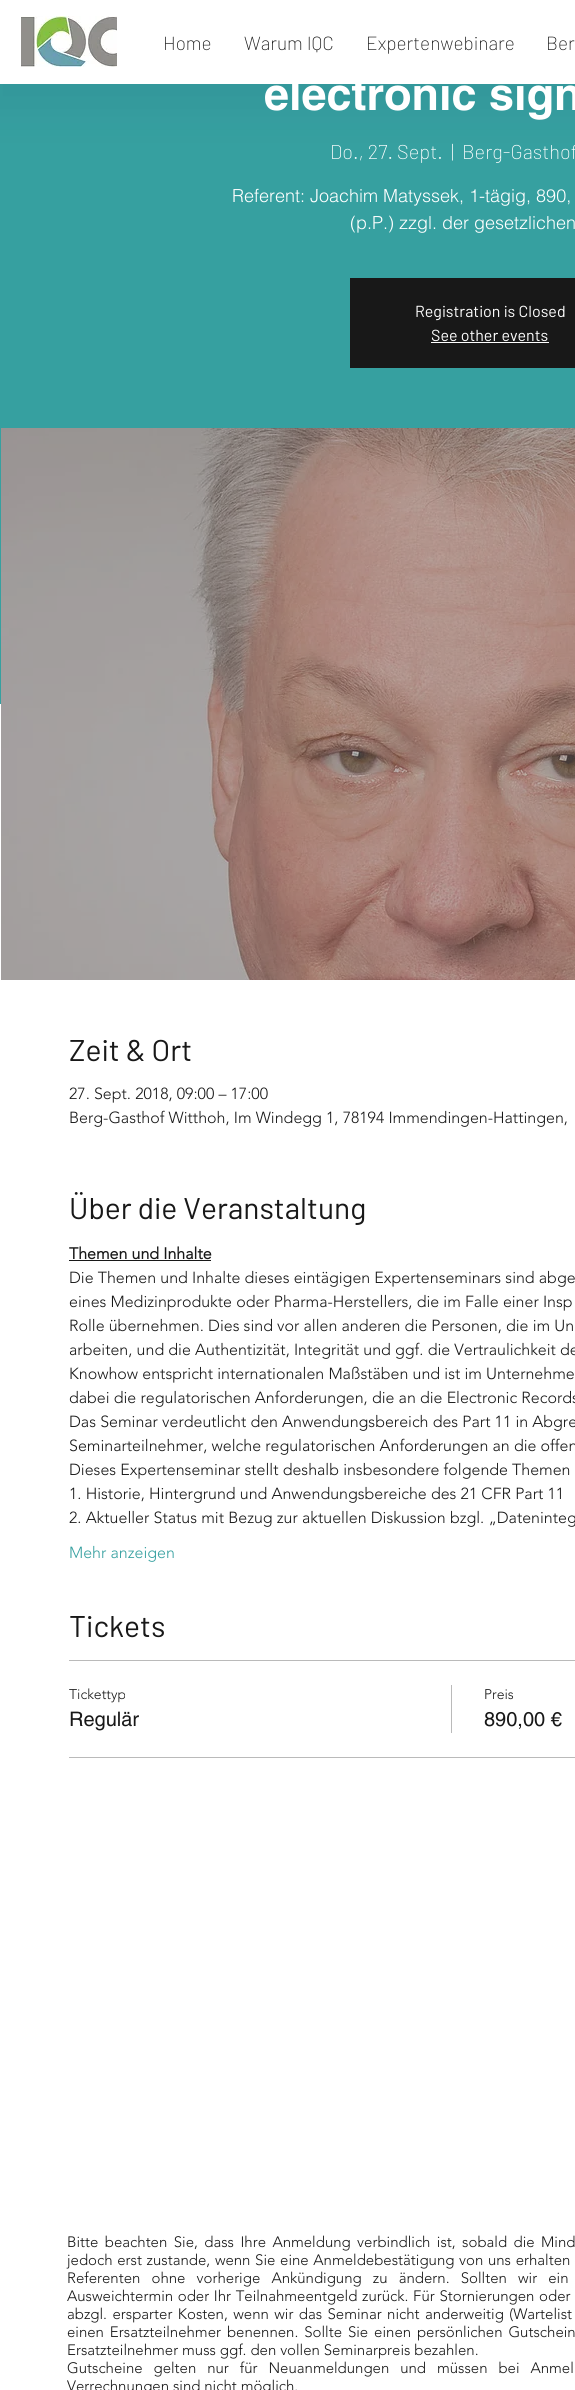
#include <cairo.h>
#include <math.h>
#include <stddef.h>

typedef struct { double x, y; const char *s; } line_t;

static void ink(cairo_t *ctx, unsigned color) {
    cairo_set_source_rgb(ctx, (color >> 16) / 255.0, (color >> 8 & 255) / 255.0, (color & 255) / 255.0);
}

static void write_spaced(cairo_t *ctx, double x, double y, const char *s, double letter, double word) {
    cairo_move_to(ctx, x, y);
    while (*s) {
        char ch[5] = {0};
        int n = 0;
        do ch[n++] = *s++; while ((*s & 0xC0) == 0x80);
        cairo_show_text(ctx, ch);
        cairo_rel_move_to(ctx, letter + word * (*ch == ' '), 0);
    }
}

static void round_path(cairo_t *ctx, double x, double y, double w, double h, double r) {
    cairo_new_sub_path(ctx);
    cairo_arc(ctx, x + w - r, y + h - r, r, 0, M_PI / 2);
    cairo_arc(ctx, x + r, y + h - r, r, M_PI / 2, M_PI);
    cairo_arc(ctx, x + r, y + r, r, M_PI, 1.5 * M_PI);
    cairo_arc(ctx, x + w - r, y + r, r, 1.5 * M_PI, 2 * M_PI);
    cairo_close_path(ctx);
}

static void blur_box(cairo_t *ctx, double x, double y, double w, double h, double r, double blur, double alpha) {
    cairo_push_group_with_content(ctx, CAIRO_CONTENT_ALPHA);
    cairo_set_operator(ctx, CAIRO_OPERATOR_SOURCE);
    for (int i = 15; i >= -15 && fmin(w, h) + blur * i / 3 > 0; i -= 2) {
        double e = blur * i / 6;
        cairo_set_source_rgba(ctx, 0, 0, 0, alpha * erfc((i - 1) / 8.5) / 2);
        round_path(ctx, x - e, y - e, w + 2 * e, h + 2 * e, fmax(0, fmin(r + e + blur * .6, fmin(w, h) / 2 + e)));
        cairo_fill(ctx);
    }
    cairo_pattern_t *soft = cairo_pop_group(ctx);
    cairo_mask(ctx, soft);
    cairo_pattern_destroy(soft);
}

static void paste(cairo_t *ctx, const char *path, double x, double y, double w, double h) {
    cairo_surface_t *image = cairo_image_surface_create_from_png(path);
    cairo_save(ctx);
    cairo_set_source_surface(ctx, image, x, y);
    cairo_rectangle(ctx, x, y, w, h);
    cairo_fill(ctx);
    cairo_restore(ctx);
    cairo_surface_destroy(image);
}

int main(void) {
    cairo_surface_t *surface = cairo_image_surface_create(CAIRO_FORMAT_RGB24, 575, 2390);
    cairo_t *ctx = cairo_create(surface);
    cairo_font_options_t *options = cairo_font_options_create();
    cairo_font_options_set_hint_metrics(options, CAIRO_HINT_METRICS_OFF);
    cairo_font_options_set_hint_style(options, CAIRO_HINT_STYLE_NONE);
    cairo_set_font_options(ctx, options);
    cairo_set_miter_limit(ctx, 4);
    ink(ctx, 0xFFFFFF);
    cairo_paint(ctx);
    ink(ctx, 0x36A0A0);
    cairo_rectangle(ctx, 0, 84, 575, 620);
    cairo_fill(ctx);
    ink(ctx, 0x15315C);
    blur_box(ctx, -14, 1, 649, 112, 0, 20, 0.08);
    ink(ctx, 0xFFFFFF);
    cairo_rectangle(ctx, 0, 0, 575, 84);
    cairo_fill(ctx);
    paste(ctx, "media/1.png", 21, 16, 96, 51);
    cairo_select_font_face(ctx, "Barlow ExtraLight", CAIRO_FONT_SLANT_NORMAL, CAIRO_FONT_WEIGHT_NORMAL);
    cairo_set_font_size(ctx, 19);
    ink(ctx, 0x181818);
    {
        static const line_t items[] = {
            {163, 50, "Home"},
            {244, 50, "Warum IQC"},
            {366, 50, "Expertenwebinare"},
            {546, 50, "Ber"},
        };
        for (size_t i = 0; i < sizeof items / sizeof *items; i++) {
            cairo_move_to(ctx, items[i].x, items[i].y);
            cairo_show_text(ctx, items[i].s);
        }
    }
    cairo_select_font_face(ctx, "helvetica", CAIRO_FONT_SLANT_NORMAL, CAIRO_FONT_WEIGHT_BOLD);
    cairo_set_font_size(ctx, 45);
    ink(ctx, 0xFFFFFF);
    cairo_move_to(ctx, 264, 110);
    cairo_show_text(ctx, "electronic sign");
    cairo_select_font_face(ctx, "Barlow ExtraLight", CAIRO_FONT_SLANT_NORMAL, CAIRO_FONT_WEIGHT_NORMAL);
    cairo_set_font_size(ctx, 20);
    {
        static const line_t items[] = {
            {330, 159, "Do., 27. Sept."},
            {451, 159, "|"},
            {462, 159, "Berg-Gasthof"},
        };
        for (size_t i = 0; i < sizeof items / sizeof *items; i++) {
            cairo_move_to(ctx, items[i].x, items[i].y);
            cairo_show_text(ctx, items[i].s);
        }
    }
    cairo_select_font_face(ctx, "helvetica Light", CAIRO_FONT_SLANT_NORMAL, CAIRO_FONT_WEIGHT_NORMAL);
    cairo_set_font_size(ctx, 18);
    cairo_move_to(ctx, 232, 202);
    cairo_show_text(ctx, "Referent: Joachim Matyssek, 1-tägig, 890,");
    cairo_move_to(ctx, 350, 229);
    cairo_show_text(ctx, "(p.P.) zzgl. der gesetzlichen");
    ink(ctx, 0x181818);
    cairo_rectangle(ctx, 350, 278, 225, 90);
    cairo_fill(ctx);
    cairo_select_font_face(ctx, "Barlow", CAIRO_FONT_SLANT_NORMAL, CAIRO_FONT_WEIGHT_NORMAL);
    cairo_set_font_size(ctx, 16);
    ink(ctx, 0xFFFFFF);
    cairo_move_to(ctx, 415, 317);
    cairo_show_text(ctx, "Registration is Closed");
    cairo_move_to(ctx, 431, 341);
    cairo_show_text(ctx, "See other events");
    cairo_rectangle(ctx, 431, 342, 118, 1);
    cairo_fill(ctx);
    ink(ctx, 0x727272);
    cairo_rectangle(ctx, 1, 428, 574, 552);
    cairo_fill(ctx);
    paste(ctx, "media/2.png", 1, 428, 574, 552);
    cairo_set_font_size(ctx, 30);
    ink(ctx, 0x181818);
    cairo_move_to(ctx, 69, 1061);
    cairo_show_text(ctx, "Zeit & Ort");
    cairo_select_font_face(ctx, "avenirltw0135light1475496 Light", CAIRO_FONT_SLANT_NORMAL, CAIRO_FONT_WEIGHT_NORMAL);
    cairo_set_font_size(ctx, 16);
    cairo_move_to(ctx, 69, 1099);
    cairo_show_text(ctx, "27. Sept. 2018, 09:00 – 17:00");
    cairo_move_to(ctx, 69, 1123);
    cairo_show_text(ctx, "Berg-Gasthof Witthoh, Im Windegg 1, 78194 Immendingen-Hattingen,");
    cairo_select_font_face(ctx, "Barlow", CAIRO_FONT_SLANT_NORMAL, CAIRO_FONT_WEIGHT_NORMAL);
    cairo_set_font_size(ctx, 30);
    cairo_move_to(ctx, 69, 1219);
    cairo_show_text(ctx, "Über die Veranstaltung");
    cairo_select_font_face(ctx, "avenirltw0135light1475496", CAIRO_FONT_SLANT_NORMAL, CAIRO_FONT_WEIGHT_BOLD);
    cairo_set_font_size(ctx, 16);
    cairo_move_to(ctx, 69, 1259);
    cairo_show_text(ctx, "Themen und Inhalte");
    cairo_rectangle(ctx, 69, 1260, 142, 1);
    cairo_fill(ctx);
    cairo_select_font_face(ctx, "avenirltw0135light1475496 Light", CAIRO_FONT_SLANT_NORMAL, CAIRO_FONT_WEIGHT_NORMAL);
    {
        static const line_t items[] = {
            {69, 1283, "Die Themen und Inhalte dieses eintägigen Expertenseminars sind abge"},
            {69, 1307, "eines Medizinprodukte oder Pharma-Herstellers, die im Falle einer Insp"},
            {69, 1331, "Rolle übernehmen. Dies sind vor allen anderen die Personen, die im Un"},
            {69, 1355, "arbeiten, und die Authentizität, Integrität und ggf. die Vertraulichkeit de"},
            {69, 1379, "Knowhow entspricht internationalen Maßstäben und ist im Unternehme"},
            {69, 1403, "dabei die regulatorischen Anforderungen, die an die Electronic Records"},
            {69, 1427, "Das Seminar verdeutlicht den Anwendungsbereich des Part 11 in Abgre"},
            {69, 1451, "Seminarteilnehmer, welche regulatorischen Anforderungen an die offen"},
            {69, 1475, "Dieses Expertenseminar stellt deshalb insbesondere folgende Themen"},
            {69, 1499, "1. Historie, Hintergrund und Anwendungsbereiche des 21 CFR Part 11"},
            {69, 1523, "2. Aktueller Status mit Bezug zur aktuellen Diskussion bzgl. „Dateninteg"},
        };
        for (size_t i = 0; i < sizeof items / sizeof *items; i++) {
            cairo_move_to(ctx, items[i].x, items[i].y);
            cairo_show_text(ctx, items[i].s);
        }
    }
    ink(ctx, 0x36A0A0);
    cairo_move_to(ctx, 69, 1558);
    cairo_show_text(ctx, "Mehr anzeigen");
    cairo_select_font_face(ctx, "Barlow", CAIRO_FONT_SLANT_NORMAL, CAIRO_FONT_WEIGHT_NORMAL);
    cairo_set_font_size(ctx, 30);
    ink(ctx, 0x181818);
    cairo_move_to(ctx, 69, 1637);
    cairo_show_text(ctx, "Tickets");
    ink(ctx, 0xBABABA);
    cairo_rectangle(ctx, 69, 1660, 506, 1);
    cairo_fill(ctx);
    cairo_rectangle(ctx, 69, 1757, 506, 1);
    cairo_fill(ctx);
    cairo_select_font_face(ctx, "avenirltw0135light1475496 Light", CAIRO_FONT_SLANT_NORMAL, CAIRO_FONT_WEIGHT_NORMAL);
    cairo_set_font_size(ctx, 14);
    ink(ctx, 0x181818);
    cairo_move_to(ctx, 69, 1699);
    cairo_show_text(ctx, "Tickettyp");
    cairo_select_font_face(ctx, "helvetica", CAIRO_FONT_SLANT_NORMAL, CAIRO_FONT_WEIGHT_NORMAL);
    cairo_set_font_size(ctx, 20);
    cairo_move_to(ctx, 69, 1726);
    cairo_show_text(ctx, "Regulär");
    ink(ctx, 0xBABABA);
    cairo_rectangle(ctx, 451, 1685, 1, 48);
    cairo_fill(ctx);
    cairo_select_font_face(ctx, "avenirltw0135light1475496 Light", CAIRO_FONT_SLANT_NORMAL, CAIRO_FONT_WEIGHT_NORMAL);
    cairo_set_font_size(ctx, 14);
    ink(ctx, 0x181818);
    cairo_move_to(ctx, 484, 1699);
    cairo_show_text(ctx, "Preis");
    cairo_select_font_face(ctx, "helvetica", CAIRO_FONT_SLANT_NORMAL, CAIRO_FONT_WEIGHT_NORMAL);
    cairo_set_font_size(ctx, 20);
    cairo_move_to(ctx, 484, 1726);
    cairo_show_text(ctx, "890,00 €");
    cairo_select_font_face(ctx, "avenirltw0135light1475496 Light", CAIRO_FONT_SLANT_NORMAL, CAIRO_FONT_WEIGHT_NORMAL);
    cairo_set_font_size(ctx, 15);
    write_spaced(ctx, 67, 2247, "Bitte beachten Sie, dass Ihre Anmeldung verbindlich ist, sobald die Mind", 0, 2.5);
    write_spaced(ctx, 67, 2265, "jedoch erst zustande, wenn Sie eine Anmeldebestätigung von uns erhalten", 0, 0.75);
    write_spaced(ctx, 67, 2283, "Referenten ohne vorherige Ankündigung zu ändern. Sollten wir ein", 0, 7.25);
    write_spaced(ctx, 67, 2301, "Ausweichtermin oder Ihr Teilnahmeentgeld zurück. Für Stornierungen oder", 0, 0.75);
    write_spaced(ctx, 67, 2319, "abzgl. ersparter Kosten, wenn wir das Seminar nicht anderweitig (Wartelist", 0, 1.5);
    write_spaced(ctx, 67, 2337, "einen Ersatzteilnehmer benennen. Sollte Sie einen persönlichen Gutschein", 0, 2);
    cairo_move_to(ctx, 67, 2355);
    cairo_show_text(ctx, "Ersatzteilnehmer muss ggf. den vollen Seminarpreis bezahlen.");
    write_spaced(ctx, 67, 2373, "Gutscheine gelten nur für Neuanmeldungen und müssen bei Anmel", 0, 7);
    cairo_move_to(ctx, 67, 2391);
    cairo_show_text(ctx, "Verrechnungen sind nicht möglich.");
    cairo_surface_write_to_png(surface, "image.png");
    cairo_font_options_destroy(options);
    cairo_destroy(ctx);
    cairo_surface_destroy(surface);
    return 0;
}
